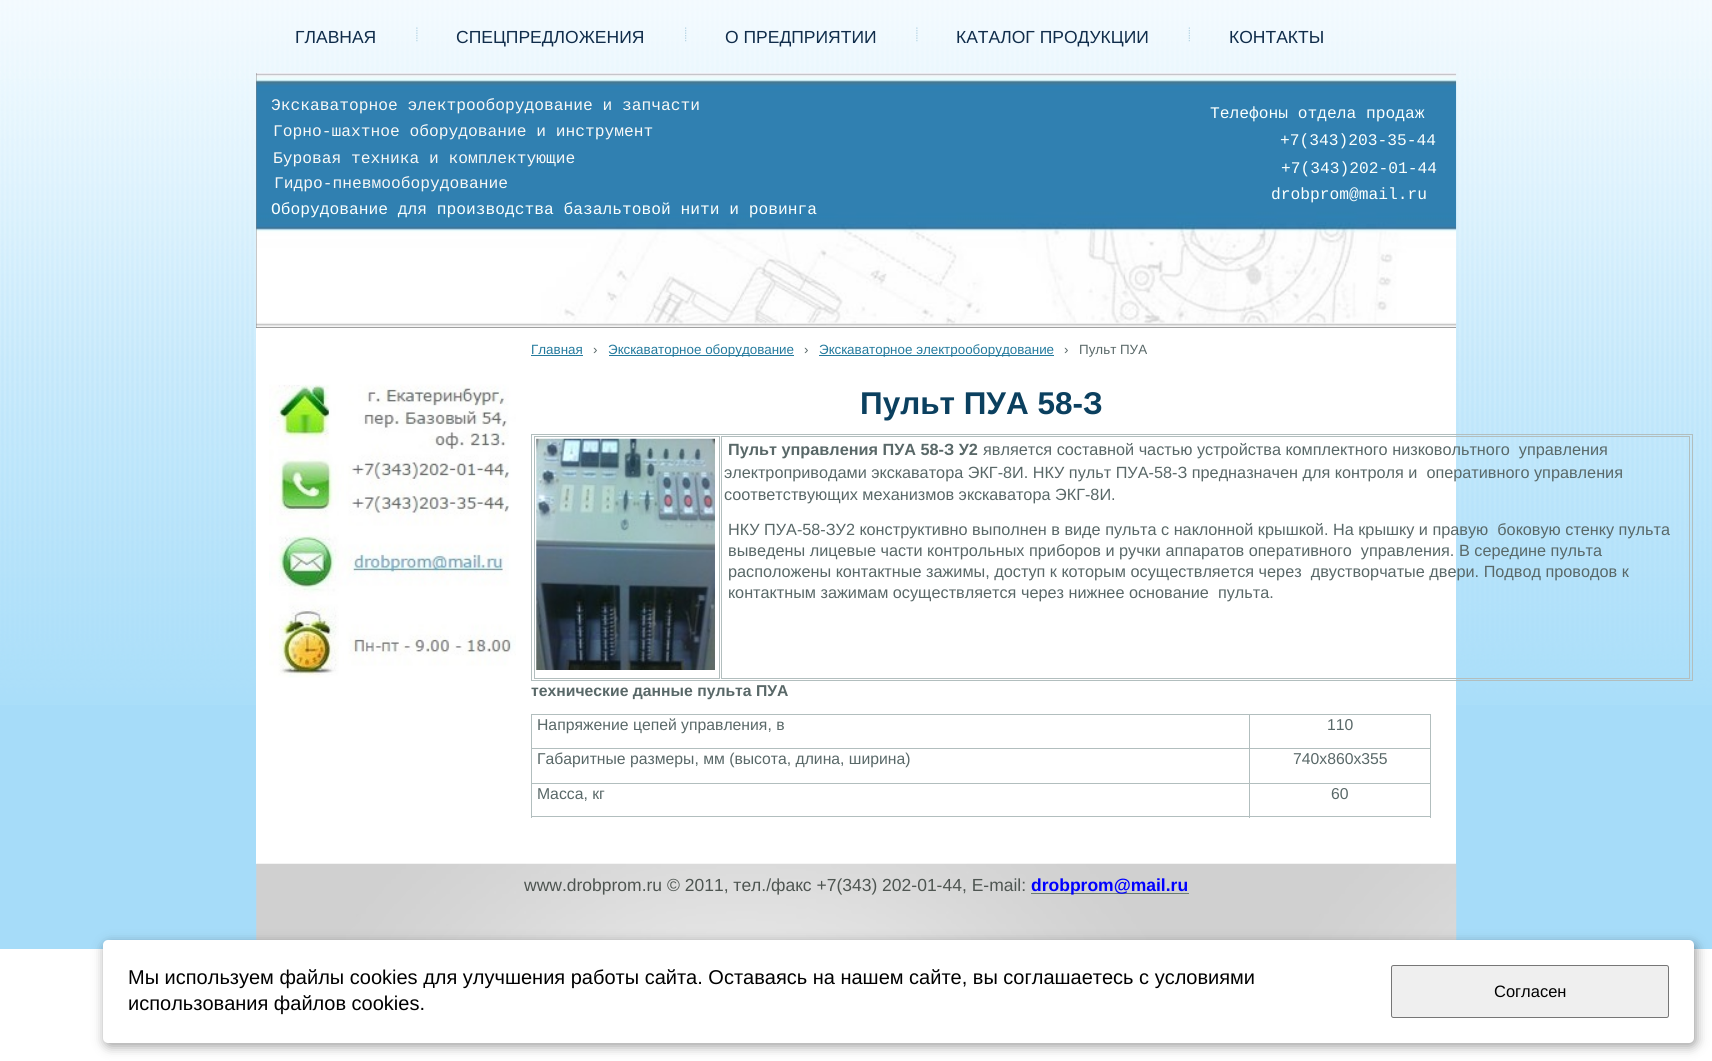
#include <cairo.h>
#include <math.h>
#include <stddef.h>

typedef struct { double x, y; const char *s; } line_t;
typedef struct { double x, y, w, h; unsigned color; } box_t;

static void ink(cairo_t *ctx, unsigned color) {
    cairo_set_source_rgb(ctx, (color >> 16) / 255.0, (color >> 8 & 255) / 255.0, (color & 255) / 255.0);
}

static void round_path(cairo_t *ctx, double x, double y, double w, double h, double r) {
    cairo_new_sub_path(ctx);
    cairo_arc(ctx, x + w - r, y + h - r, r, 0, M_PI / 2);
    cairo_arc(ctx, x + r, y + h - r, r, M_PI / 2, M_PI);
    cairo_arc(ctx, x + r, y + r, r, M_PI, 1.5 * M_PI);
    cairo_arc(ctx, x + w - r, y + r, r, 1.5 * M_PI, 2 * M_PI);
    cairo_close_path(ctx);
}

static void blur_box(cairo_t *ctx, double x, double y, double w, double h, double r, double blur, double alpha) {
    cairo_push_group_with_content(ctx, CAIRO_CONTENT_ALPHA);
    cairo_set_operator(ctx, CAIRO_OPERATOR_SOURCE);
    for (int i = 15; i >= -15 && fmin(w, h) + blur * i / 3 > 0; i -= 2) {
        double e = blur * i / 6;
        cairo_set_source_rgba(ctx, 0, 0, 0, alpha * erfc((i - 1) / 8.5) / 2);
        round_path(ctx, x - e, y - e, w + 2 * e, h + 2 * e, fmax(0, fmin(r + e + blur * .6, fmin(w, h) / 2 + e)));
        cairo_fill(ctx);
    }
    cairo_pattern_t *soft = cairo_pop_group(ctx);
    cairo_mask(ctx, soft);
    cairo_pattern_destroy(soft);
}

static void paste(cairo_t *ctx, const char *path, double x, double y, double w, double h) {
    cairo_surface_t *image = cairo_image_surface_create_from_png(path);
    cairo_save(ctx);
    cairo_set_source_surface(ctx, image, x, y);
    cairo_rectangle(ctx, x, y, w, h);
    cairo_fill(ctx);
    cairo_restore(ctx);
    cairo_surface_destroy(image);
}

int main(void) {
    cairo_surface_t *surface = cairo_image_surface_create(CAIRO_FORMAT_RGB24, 1712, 1061);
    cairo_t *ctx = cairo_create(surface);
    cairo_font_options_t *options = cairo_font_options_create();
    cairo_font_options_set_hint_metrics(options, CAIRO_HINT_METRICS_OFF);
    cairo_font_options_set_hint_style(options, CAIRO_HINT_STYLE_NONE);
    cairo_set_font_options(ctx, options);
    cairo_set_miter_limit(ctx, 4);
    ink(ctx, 0xFFFFFF);
    cairo_paint(ctx);
    ink(ctx, 0xA6DCF9);
    cairo_rectangle(ctx, 0, 705, 1712, 244);
    cairo_fill(ctx);
    paste(ctx, "media/1.png", 0, 0, 1712, 705);
    paste(ctx, "media/2.png", 416, 27, 2, 15);
    cairo_select_font_face(ctx, "Liberation Sans", CAIRO_FONT_SLANT_NORMAL, CAIRO_FONT_WEIGHT_NORMAL);
    cairo_set_font_size(ctx, 17.5);
    ink(ctx, 0x102D4B);
    cairo_move_to(ctx, 295, 43);
    cairo_show_text(ctx, "ГЛАВНАЯ");
    paste(ctx, "media/3.png", 685, 27, 2, 15);
    cairo_move_to(ctx, 456, 43);
    cairo_show_text(ctx, "СПЕЦПРЕДЛОЖЕНИЯ");
    paste(ctx, "media/4.png", 916, 27, 2, 15);
    cairo_move_to(ctx, 725, 43);
    cairo_show_text(ctx, "О ПРЕДПРИЯТИИ");
    paste(ctx, "media/5.png", 1188, 27, 2, 15);
    cairo_move_to(ctx, 956, 43);
    cairo_show_text(ctx, "КАТАЛОГ ПРОДУКЦИИ");
    cairo_move_to(ctx, 1229, 43);
    cairo_show_text(ctx, "КОНТАКТЫ");
    ink(ctx, 0x808080);
    cairo_rectangle(ctx, 256, 73, 1200, 255);
    cairo_fill(ctx);
    paste(ctx, "media/6.png", 256, 72, 1201, 256);
    cairo_select_font_face(ctx, "Liberation Mono", CAIRO_FONT_SLANT_NORMAL, CAIRO_FONT_WEIGHT_NORMAL);
    cairo_set_font_size(ctx, 16.25);
    ink(ctx, 0xF8F8F7);
    cairo_move_to(ctx, 271, 110);
    cairo_show_text(ctx, "Экскаваторное электрооборудование и запчасти");
    ink(ctx, 0xFAFFFE);
    cairo_move_to(ctx, 1210, 118);
    cairo_show_text(ctx, "Телефоны отдела продаж");
    ink(ctx, 0xF8F8F7);
    cairo_move_to(ctx, 273, 136);
    cairo_show_text(ctx, "Горно-шахтное оборудование и инструмент");
    ink(ctx, 0xFAFFFE);
    cairo_move_to(ctx, 1280, 145);
    cairo_show_text(ctx, "+7(343)203-35-44");
    ink(ctx, 0xF8F8F7);
    cairo_move_to(ctx, 273, 163);
    cairo_show_text(ctx, "Буровая техника и комплектующие");
    ink(ctx, 0xFAFFFE);
    cairo_move_to(ctx, 1281, 173);
    cairo_show_text(ctx, "+7(343)202-01-44");
    ink(ctx, 0xF8F8F7);
    cairo_move_to(ctx, 274, 188);
    cairo_show_text(ctx, "Гидро-пневмооборудование");
    ink(ctx, 0xFAFFFE);
    cairo_move_to(ctx, 1271, 199);
    cairo_show_text(ctx, "drobprom@mail.ru");
    cairo_move_to(ctx, 271, 214);
    cairo_show_text(ctx, "Оборудование для производства базальтовой нити и ровинга");
    ink(ctx, 0xFFFFFF);
    cairo_rectangle(ctx, 256, 328, 1200, 536);
    cairo_fill(ctx);
    paste(ctx, "media/7.png", 269, 384, 247, 294);
    cairo_select_font_face(ctx, "Liberation Sans", CAIRO_FONT_SLANT_NORMAL, CAIRO_FONT_WEIGHT_NORMAL);
    cairo_set_font_size(ctx, 13.4);
    ink(ctx, 0x247A9D);
    cairo_move_to(ctx, 531, 354);
    cairo_show_text(ctx, "Главная");
    cairo_rectangle(ctx, 531, 355, 52, 1);
    cairo_fill(ctx);
    ink(ctx, 0x596868);
    cairo_move_to(ctx, 593, 354);
    cairo_show_text(ctx, "›");
    ink(ctx, 0x247A9D);
    cairo_rectangle(ctx, 609, 355, 185, 1);
    cairo_fill(ctx);
    cairo_move_to(ctx, 608, 354);
    cairo_show_text(ctx, "Экскаваторное оборудование");
    ink(ctx, 0x596868);
    cairo_move_to(ctx, 804, 354);
    cairo_show_text(ctx, "›");
    ink(ctx, 0x247A9D);
    cairo_rectangle(ctx, 819, 355, 235, 1);
    cairo_fill(ctx);
    cairo_move_to(ctx, 819, 354);
    cairo_show_text(ctx, "Экскаваторное электрооборудование");
    ink(ctx, 0x596868);
    cairo_move_to(ctx, 1064, 354);
    cairo_show_text(ctx, "›");
    cairo_move_to(ctx, 1079, 354);
    cairo_show_text(ctx, "Пульт ПУА");
    cairo_select_font_face(ctx, "Liberation Sans", CAIRO_FONT_SLANT_NORMAL, CAIRO_FONT_WEIGHT_BOLD);
    cairo_set_font_size(ctx, 31.5);
    ink(ctx, 0x0B405F);
    cairo_move_to(ctx, 860, 414);
    cairo_show_text(ctx, "Пульт ПУА 58-З");
    cairo_rectangle(ctx, 531.5, 434.5, 1161, 246);
    ink(ctx, 0xB2BEBE);
    cairo_set_line_width(ctx, 1);
    cairo_stroke(ctx);
    cairo_rectangle(ctx, 534.5, 436.5, 185, 242);
    cairo_stroke(ctx);
    paste(ctx, "media/8.png", 536, 438, 179, 232);
    cairo_rectangle(ctx, 721.5, 436.5, 968, 242);
    cairo_stroke(ctx);
    cairo_set_font_size(ctx, 16.25);
    ink(ctx, 0x596868);
    cairo_move_to(ctx, 728, 455);
    cairo_show_text(ctx, "Пульт управления ПУА 58-З У2");
    cairo_select_font_face(ctx, "Liberation Sans", CAIRO_FONT_SLANT_NORMAL, CAIRO_FONT_WEIGHT_NORMAL);
    {
        static const line_t items[] = {
            {983, 455, "является составной частью устройства комплектного низковольтного  управления"},
            {724, 478, "электроприводами экскаватора ЭКГ-8И. НКУ пульт ПУА-58-З предназначен для контроля и  оперативного управления"},
            {724, 500, "соответствующих механизмов экскаватора ЭКГ-8И."},
            {728, 535, "НКУ ПУА-58-ЗУ2 конструктивно выполнен в виде пульта с наклонной крышкой. На крышку и правую  боковую стенку пульта"},
            {728, 556, "выведены лицевые части контрольных приборов и ручки аппаратов оперативного  управления. В середине пульта"},
            {728, 577, "расположены контактные зажимы, доступ к которым осуществляется через  двустворчатые двери. Подвод проводов к"},
            {728, 598, "контактным зажимам осуществляется через нижнее основание  пульта."},
        };
        for (size_t i = 0; i < sizeof items / sizeof *items; i++) {
            cairo_move_to(ctx, items[i].x, items[i].y);
            cairo_show_text(ctx, items[i].s);
        }
    }
    cairo_select_font_face(ctx, "Liberation Sans", CAIRO_FONT_SLANT_NORMAL, CAIRO_FONT_WEIGHT_BOLD);
    cairo_set_font_size(ctx, 15.75);
    cairo_move_to(ctx, 531, 696);
    cairo_show_text(ctx, "технические данные пульта ПУА");
    {
        static const box_t items[] = {
            {531, 714, 900, 1, 0xB2BEBE},
            {1430, 714, 1, 104, 0xB2BEBE},
            {531, 816, 900, 1, 0xB2BEBE},
            {531, 714, 1, 104, 0xB2BEBE},
        };
        for (size_t i = 0; i < sizeof items / sizeof *items; i++) {
            ink(ctx, items[i].color);
            cairo_rectangle(ctx, items[i].x, items[i].y, items[i].w, items[i].h);
            cairo_fill(ctx);
        }
    }
    cairo_select_font_face(ctx, "Liberation Sans", CAIRO_FONT_SLANT_NORMAL, CAIRO_FONT_WEIGHT_NORMAL);
    ink(ctx, 0x596868);
    cairo_move_to(ctx, 537, 730);
    cairo_show_text(ctx, "Напряжение цепей управления, в");
    {
        static const box_t items[] = {
            {1249, 748, 182, 1, 0xB2BEBE},
            {1249, 783, 182, 1, 0xB2BEBE},
            {1249, 783, 1, 35, 0xB2BEBE},
            {531, 783, 719, 1, 0xB2BEBE},
            {1249, 748, 1, 36, 0xB2BEBE},
            {531, 748, 719, 1, 0xB2BEBE},
            {1249, 714, 1, 35, 0xB2BEBE},
        };
        for (size_t i = 0; i < sizeof items / sizeof *items; i++) {
            ink(ctx, items[i].color);
            cairo_rectangle(ctx, items[i].x, items[i].y, items[i].w, items[i].h);
            cairo_fill(ctx);
        }
    }
    ink(ctx, 0x596868);
    {
        static const line_t items[] = {
            {1327, 730, "110"},
            {537, 764, "Габаритные размеры, мм (высота, длина, ширина)"},
            {1293, 764, "740x860x355"},
            {537, 799, "Масса, кг"},
            {1331, 799, "60"},
        };
        for (size_t i = 0; i < sizeof items / sizeof *items; i++) {
            cairo_move_to(ctx, items[i].x, items[i].y);
            cairo_show_text(ctx, items[i].s);
        }
    }
    paste(ctx, "media/9.png", 256, 863, 1201, 77);
    cairo_set_font_size(ctx, 17.5);
    ink(ctx, 0x4E5551);
    cairo_move_to(ctx, 524, 891);
    cairo_show_text(ctx, "www.drobprom.ru © 2011, тел./факс +7(343) 202-01-44, Е-mail:");
    ink(ctx, 0x6A7A71);
    cairo_rectangle(ctx, 1031, 893, 158, 1);
    cairo_fill(ctx);
    cairo_select_font_face(ctx, "Liberation Sans", CAIRO_FONT_SLANT_NORMAL, CAIRO_FONT_WEIGHT_BOLD);
    ink(ctx, 0x0000FF);
    cairo_move_to(ctx, 1031, 891);
    cairo_show_text(ctx, "drobprom@mail.ru");
    ink(ctx, 0x000000);
    blur_box(ctx, 105, 944, 1591, 102, 5, 6, 0.4);
    ink(ctx, 0xFFFFFF);
    round_path(ctx, 103, 940, 1591, 103, 5);
    cairo_fill(ctx);
    cairo_select_font_face(ctx, "Liberation Sans", CAIRO_FONT_SLANT_NORMAL, CAIRO_FONT_WEIGHT_NORMAL);
    cairo_set_font_size(ctx, 20);
    ink(ctx, 0x000000);
    cairo_move_to(ctx, 128, 984);
    cairo_show_text(ctx, "Мы используем файлы cookies для улучшения работы сайта. Оставаясь на нашем сайте, вы соглашаетесь с условиями");
    cairo_move_to(ctx, 128, 1010);
    cairo_show_text(ctx, "использования файлов cookies.");
    ink(ctx, 0xEFEFEF);
    round_path(ctx, 1391.5, 965.5, 277, 52, 2);
    cairo_fill_preserve(ctx);
    ink(ctx, 0x767676);
    cairo_stroke(ctx);
    cairo_set_font_size(ctx, 16.5);
    ink(ctx, 0x000000);
    cairo_move_to(ctx, 1494, 997);
    cairo_show_text(ctx, "Согласен");
    cairo_surface_write_to_png(surface, "image.png");
    cairo_font_options_destroy(options);
    cairo_destroy(ctx);
    cairo_surface_destroy(surface);
    return 0;
}
